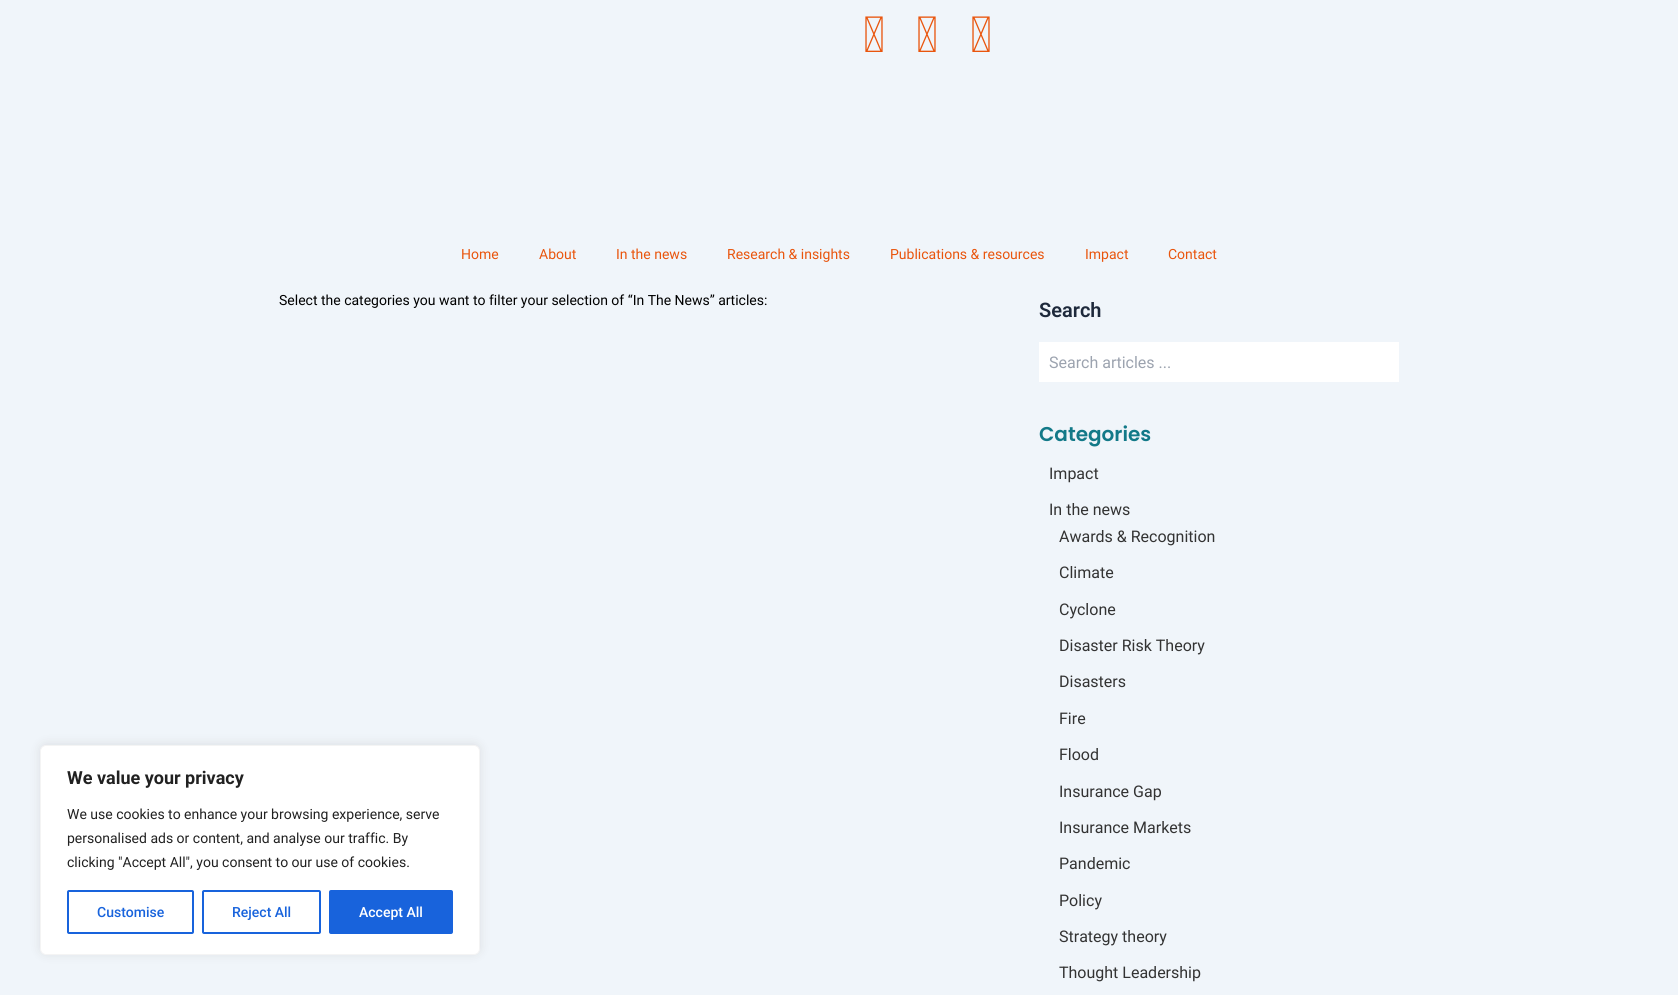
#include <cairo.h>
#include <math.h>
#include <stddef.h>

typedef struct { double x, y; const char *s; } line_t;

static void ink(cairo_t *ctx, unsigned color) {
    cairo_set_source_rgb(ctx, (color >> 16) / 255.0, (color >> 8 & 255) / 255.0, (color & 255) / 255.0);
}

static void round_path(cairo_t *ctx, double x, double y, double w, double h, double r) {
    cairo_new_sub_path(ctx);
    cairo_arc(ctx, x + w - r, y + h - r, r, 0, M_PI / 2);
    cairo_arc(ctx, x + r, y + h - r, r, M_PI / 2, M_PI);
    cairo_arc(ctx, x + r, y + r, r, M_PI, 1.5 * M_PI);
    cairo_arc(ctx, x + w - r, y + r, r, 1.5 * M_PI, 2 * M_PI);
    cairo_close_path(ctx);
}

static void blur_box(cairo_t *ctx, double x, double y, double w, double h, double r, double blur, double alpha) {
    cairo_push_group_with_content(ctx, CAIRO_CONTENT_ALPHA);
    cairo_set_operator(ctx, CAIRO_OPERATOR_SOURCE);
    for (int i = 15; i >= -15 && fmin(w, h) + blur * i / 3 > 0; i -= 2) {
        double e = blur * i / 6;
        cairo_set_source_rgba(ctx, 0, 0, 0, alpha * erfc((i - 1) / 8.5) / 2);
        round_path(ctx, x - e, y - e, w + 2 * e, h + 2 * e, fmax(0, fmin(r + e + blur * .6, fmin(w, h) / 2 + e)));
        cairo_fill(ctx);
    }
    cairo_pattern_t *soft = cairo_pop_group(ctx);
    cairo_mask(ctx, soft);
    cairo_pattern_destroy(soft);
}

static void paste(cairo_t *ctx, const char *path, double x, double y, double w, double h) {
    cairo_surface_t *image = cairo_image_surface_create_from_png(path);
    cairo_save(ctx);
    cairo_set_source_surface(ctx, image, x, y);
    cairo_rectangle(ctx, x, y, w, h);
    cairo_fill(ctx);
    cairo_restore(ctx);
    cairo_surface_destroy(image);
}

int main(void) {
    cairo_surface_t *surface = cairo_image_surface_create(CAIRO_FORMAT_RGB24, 1678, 995);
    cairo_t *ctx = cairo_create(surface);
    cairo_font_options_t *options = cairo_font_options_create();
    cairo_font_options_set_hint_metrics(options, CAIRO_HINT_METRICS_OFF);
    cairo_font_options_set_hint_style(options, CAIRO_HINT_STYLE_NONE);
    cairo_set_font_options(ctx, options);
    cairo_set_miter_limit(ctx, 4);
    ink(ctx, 0xF0F5FA);
    cairo_paint(ctx);
    ink(ctx, 0xACABAB);
    blur_box(ctx, 40, 744, 440, 210, 6, 5, 0.3);
    ink(ctx, 0xFFFFFF);
    round_path(ctx, 40.5, 745.5, 439, 209, 5.5);
    cairo_fill_preserve(ctx);
    ink(ctx, 0xF4F4F4);
    cairo_set_line_width(ctx, 1);
    cairo_stroke(ctx);
    cairo_select_font_face(ctx, "Roboto", CAIRO_FONT_SLANT_NORMAL, CAIRO_FONT_WEIGHT_BOLD);
    cairo_set_font_size(ctx, 18);
    ink(ctx, 0x212121);
    cairo_move_to(ctx, 67, 784);
    cairo_show_text(ctx, "We value your privacy");
    cairo_select_font_face(ctx, "Roboto", CAIRO_FONT_SLANT_NORMAL, CAIRO_FONT_WEIGHT_NORMAL);
    cairo_set_font_size(ctx, 14);
    {
        static const line_t items[] = {
            {67, 819, "We use cookies to enhance your browsing experience, serve"},
            {67, 843, "personalised ads or content, and analyse our traffic. By"},
            {67, 867, "clicking \"Accept All\", you consent to our use of cookies."},
        };
        for (size_t i = 0; i < sizeof items / sizeof *items; i++) {
            cairo_move_to(ctx, items[i].x, items[i].y);
            cairo_show_text(ctx, items[i].s);
        }
    }
    round_path(ctx, 68, 891, 125, 42, 1);
    ink(ctx, 0x1863DC);
    cairo_set_line_width(ctx, 2);
    cairo_stroke(ctx);
    cairo_select_font_face(ctx, "Roboto Medium", CAIRO_FONT_SLANT_NORMAL, CAIRO_FONT_WEIGHT_NORMAL);
    cairo_move_to(ctx, 97, 917);
    cairo_show_text(ctx, "Customise");
    round_path(ctx, 203, 891, 117, 42, 1);
    cairo_stroke(ctx);
    cairo_move_to(ctx, 232, 917);
    cairo_show_text(ctx, "Reject All");
    round_path(ctx, 330, 891, 122, 42, 1);
    cairo_fill_preserve(ctx);
    cairo_stroke(ctx);
    ink(ctx, 0xFFFFFF);
    cairo_move_to(ctx, 359, 917);
    cairo_show_text(ctx, "Accept All");
    paste(ctx, "media/1.png", 865, 16, 18, 36);
    paste(ctx, "media/1.png", 918, 16, 18, 36);
    paste(ctx, "media/1.png", 972, 16, 18, 36);
    cairo_select_font_face(ctx, "Roboto", CAIRO_FONT_SLANT_NORMAL, CAIRO_FONT_WEIGHT_NORMAL);
    ink(ctx, 0xE9550D);
    {
        static const line_t items[] = {
            {461, 259, "Home"},
            {539, 259, "About"},
            {616, 259, "In the news"},
            {727, 259, "Research & insights"},
            {890, 259, "Publications & resources"},
            {1085, 259, "Impact"},
            {1168, 259, "Contact"},
        };
        for (size_t i = 0; i < sizeof items / sizeof *items; i++) {
            cairo_move_to(ctx, items[i].x, items[i].y);
            cairo_show_text(ctx, items[i].s);
        }
    }
    ink(ctx, 0x000000);
    cairo_move_to(ctx, 279, 305);
    cairo_show_text(ctx, "Select the categories you want to filter your selection of “In The News” articles:");
    cairo_select_font_face(ctx, "Roboto SemiBold", CAIRO_FONT_SLANT_NORMAL, CAIRO_FONT_WEIGHT_NORMAL);
    cairo_set_font_size(ctx, 20);
    ink(ctx, 0x1E293B);
    cairo_move_to(ctx, 1039, 317);
    cairo_show_text(ctx, "Search");
    ink(ctx, 0xFFFFFF);
    cairo_rectangle(ctx, 1039, 342, 360, 40);
    cairo_fill(ctx);
    cairo_select_font_face(ctx, "Roboto", CAIRO_FONT_SLANT_NORMAL, CAIRO_FONT_WEIGHT_NORMAL);
    cairo_set_font_size(ctx, 16);
    ink(ctx, 0x9CA3AF);
    cairo_move_to(ctx, 1049, 368);
    cairo_show_text(ctx, "Search articles ...");
    cairo_select_font_face(ctx, "Poppins SemiBold", CAIRO_FONT_SLANT_NORMAL, CAIRO_FONT_WEIGHT_NORMAL);
    cairo_set_font_size(ctx, 20);
    ink(ctx, 0x127988);
    cairo_move_to(ctx, 1039, 441);
    cairo_show_text(ctx, "Categories");
    cairo_select_font_face(ctx, "Roboto", CAIRO_FONT_SLANT_NORMAL, CAIRO_FONT_WEIGHT_NORMAL);
    cairo_set_font_size(ctx, 16);
    ink(ctx, 0x333333);
    {
        static const line_t items[] = {
            {1049, 479, "Impact"},
            {1049, 515, "In the news"},
            {1059, 542, "Awards & Recognition"},
            {1059, 578, "Climate"},
            {1059, 615, "Cyclone"},
            {1059, 651, "Disaster Risk Theory"},
            {1059, 687, "Disasters"},
            {1059, 724, "Fire"},
            {1059, 760, "Flood"},
            {1059, 797, "Insurance Gap"},
            {1059, 833, "Insurance Markets"},
            {1059, 869, "Pandemic"},
            {1059, 906, "Policy"},
            {1059, 942, "Strategy theory"},
            {1059, 978, "Thought Leadership"},
        };
        for (size_t i = 0; i < sizeof items / sizeof *items; i++) {
            cairo_move_to(ctx, items[i].x, items[i].y);
            cairo_show_text(ctx, items[i].s);
        }
    }
    cairo_surface_write_to_png(surface, "image.png");
    cairo_font_options_destroy(options);
    cairo_destroy(ctx);
    cairo_surface_destroy(surface);
    return 0;
}
